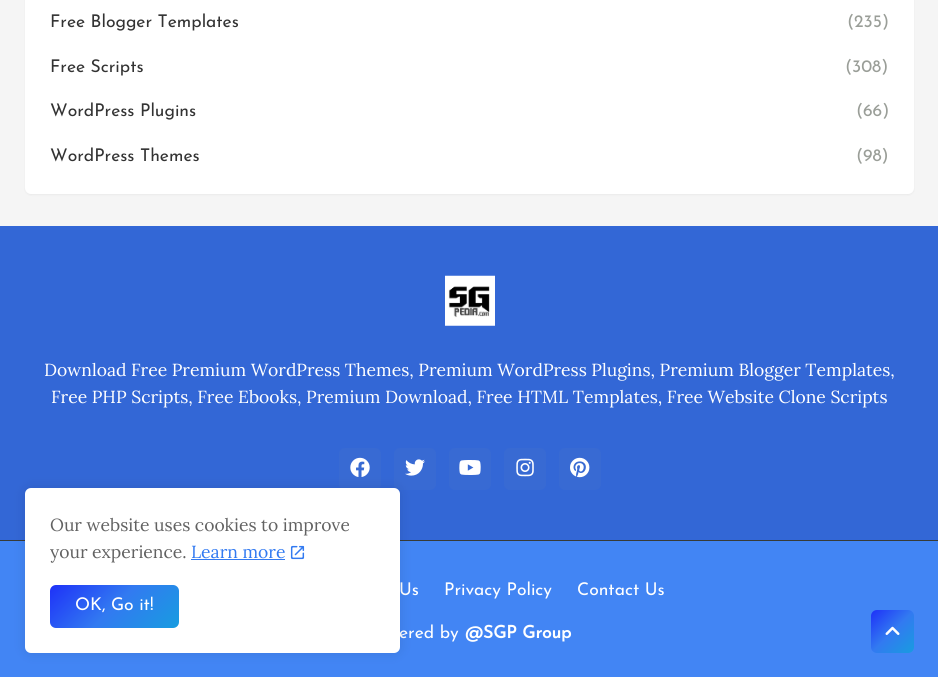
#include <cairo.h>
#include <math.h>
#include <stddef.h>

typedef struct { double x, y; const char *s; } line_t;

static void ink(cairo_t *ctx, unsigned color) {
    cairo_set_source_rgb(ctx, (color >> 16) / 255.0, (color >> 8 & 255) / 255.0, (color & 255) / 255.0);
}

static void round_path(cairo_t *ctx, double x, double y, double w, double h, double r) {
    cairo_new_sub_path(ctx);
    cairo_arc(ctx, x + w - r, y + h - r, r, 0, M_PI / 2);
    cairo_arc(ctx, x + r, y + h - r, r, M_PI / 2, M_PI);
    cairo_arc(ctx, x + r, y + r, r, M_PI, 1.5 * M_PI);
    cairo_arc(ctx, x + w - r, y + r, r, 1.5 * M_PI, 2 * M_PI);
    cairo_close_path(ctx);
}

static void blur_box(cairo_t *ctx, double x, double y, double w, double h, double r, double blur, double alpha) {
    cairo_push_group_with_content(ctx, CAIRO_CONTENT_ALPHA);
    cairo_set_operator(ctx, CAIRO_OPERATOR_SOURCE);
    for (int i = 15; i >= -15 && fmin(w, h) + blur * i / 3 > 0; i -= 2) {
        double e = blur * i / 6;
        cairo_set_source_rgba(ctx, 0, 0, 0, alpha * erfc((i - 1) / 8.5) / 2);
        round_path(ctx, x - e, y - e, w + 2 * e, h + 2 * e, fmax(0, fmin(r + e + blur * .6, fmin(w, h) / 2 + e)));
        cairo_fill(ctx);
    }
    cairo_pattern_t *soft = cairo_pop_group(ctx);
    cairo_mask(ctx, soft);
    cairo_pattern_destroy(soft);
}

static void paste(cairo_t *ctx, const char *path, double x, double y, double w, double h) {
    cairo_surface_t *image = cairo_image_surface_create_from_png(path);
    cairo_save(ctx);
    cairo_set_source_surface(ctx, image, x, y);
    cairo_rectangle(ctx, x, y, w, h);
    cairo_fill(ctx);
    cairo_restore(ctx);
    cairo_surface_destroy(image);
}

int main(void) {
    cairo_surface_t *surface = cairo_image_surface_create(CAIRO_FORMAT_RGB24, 938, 677);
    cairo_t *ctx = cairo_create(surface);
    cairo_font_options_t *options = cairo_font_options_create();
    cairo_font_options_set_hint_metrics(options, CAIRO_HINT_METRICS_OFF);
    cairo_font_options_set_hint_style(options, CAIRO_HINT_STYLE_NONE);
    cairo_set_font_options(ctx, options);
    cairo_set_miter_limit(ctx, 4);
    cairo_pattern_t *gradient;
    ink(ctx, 0xF5F5F5);
    cairo_paint(ctx);
    ink(ctx, 0x000000);
    blur_box(ctx, 25, -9, 889, 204, 6, 1, 0.05);
    ink(ctx, 0xFFFFFF);
    round_path(ctx, 25, -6, 889, 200, 6);
    cairo_fill(ctx);
    cairo_select_font_face(ctx, "Josefin Sans Thin", CAIRO_FONT_SLANT_NORMAL, CAIRO_FONT_WEIGHT_NORMAL);
    cairo_set_font_size(ctx, 17.5);
    ink(ctx, 0x333333);
    cairo_move_to(ctx, 50, 27);
    cairo_show_text(ctx, "Free Blogger Templates");
    ink(ctx, 0x9A9E98);
    cairo_move_to(ctx, 847, 27);
    cairo_show_text(ctx, "(235)");
    ink(ctx, 0x333333);
    cairo_move_to(ctx, 50, 72);
    cairo_show_text(ctx, "Free Scripts");
    ink(ctx, 0x9A9E98);
    cairo_move_to(ctx, 845, 72);
    cairo_show_text(ctx, "(308)");
    ink(ctx, 0x333333);
    cairo_move_to(ctx, 50, 116);
    cairo_show_text(ctx, "WordPress Plugins");
    ink(ctx, 0x9A9E98);
    cairo_move_to(ctx, 856, 116);
    cairo_show_text(ctx, "(66)");
    ink(ctx, 0x333333);
    cairo_move_to(ctx, 50, 161);
    cairo_show_text(ctx, "WordPress Themes");
    ink(ctx, 0x9A9E98);
    cairo_move_to(ctx, 856, 161);
    cairo_show_text(ctx, "(98)");
    ink(ctx, 0x3367D6);
    cairo_rectangle(ctx, 0, 226, 938, 314);
    cairo_fill(ctx);
    paste(ctx, "media/1.png", 445, 275, 50, 51);
    cairo_select_font_face(ctx, "Lora", CAIRO_FONT_SLANT_NORMAL, CAIRO_FONT_WEIGHT_NORMAL);
    ink(ctx, 0xFFFFFF);
    cairo_move_to(ctx, 44, 376);
    cairo_show_text(ctx, "Download Free Premium WordPress Themes, Premium WordPress Plugins, Premium Blogger Templates,");
    cairo_move_to(ctx, 51, 403);
    cairo_show_text(ctx, "Free PHP Scripts, Free Ebooks, Premium Download, Free HTML Templates, Free Website Clone Scripts");
    ink(ctx, 0x386AD3);
    round_path(ctx, 339, 448, 42, 42, 6);
    cairo_fill(ctx);
    paste(ctx, "media/2.png", 350, 457, 20, 20);
    round_path(ctx, 394, 448, 42, 42, 6);
    cairo_fill(ctx);
    paste(ctx, "media/3.png", 405, 459, 20, 17);
    round_path(ctx, 449, 448, 42, 42, 6);
    cairo_fill(ctx);
    paste(ctx, "media/4.png", 459, 460, 22, 15);
    round_path(ctx, 504, 448, 42, 42, 6);
    cairo_fill(ctx);
    paste(ctx, "media/5.png", 516, 458, 18, 19);
    round_path(ctx, 559, 448, 42, 42, 6);
    cairo_fill(ctx);
    paste(ctx, "media/6.png", 570, 457, 20, 21);
    ink(ctx, 0x4285F4);
    cairo_rectangle(ctx, 0, 541, 938, 136);
    cairo_fill(ctx);
    ink(ctx, 0x383B36);
    cairo_rectangle(ctx, 0, 540, 938, 1);
    cairo_fill(ctx);
    cairo_select_font_face(ctx, "Josefin Sans Thin", CAIRO_FONT_SLANT_NORMAL, CAIRO_FONT_WEIGHT_NORMAL);
    ink(ctx, 0xFFFFFF);
    {
        static const line_t items[] = {
            {399, 595, "Us"},
            {444, 595, "Privacy Policy"},
            {577, 595, "Contact Us"},
            {399, 638, "ered by"},
        };
        for (size_t i = 0; i < sizeof items / sizeof *items; i++) {
            cairo_move_to(ctx, items[i].x, items[i].y);
            cairo_show_text(ctx, items[i].s);
        }
    }
    cairo_select_font_face(ctx, "Josefin Sans", CAIRO_FONT_SLANT_NORMAL, CAIRO_FONT_WEIGHT_BOLD);
    cairo_move_to(ctx, 465, 638);
    cairo_show_text(ctx, "@SGP Group");
    ink(ctx, 0x000000);
    blur_box(ctx, 25, 488, 375, 165, 6, 6, 0.1);
    ink(ctx, 0xFFFFFF);
    round_path(ctx, 25, 488, 375, 165, 6);
    cairo_fill(ctx);
    cairo_select_font_face(ctx, "Lora", CAIRO_FONT_SLANT_NORMAL, CAIRO_FONT_WEIGHT_NORMAL);
    ink(ctx, 0x626262);
    cairo_move_to(ctx, 50, 531);
    cairo_show_text(ctx, "Our website uses cookies to improve");
    cairo_move_to(ctx, 50, 558);
    cairo_show_text(ctx, "your experience.");
    ink(ctx, 0x327AF1);
    cairo_move_to(ctx, 191, 558);
    cairo_show_text(ctx, "Learn more");
    cairo_rectangle(ctx, 191, 559, 94, 1);
    cairo_fill(ctx);
    paste(ctx, "media/7.png", 290, 545, 15, 15);
    gradient = cairo_pattern_create_linear(72, 563, 157, 649);
    cairo_pattern_add_color_stop_rgba(gradient, 0, 0.118, 0.192, 0.973, 1);
    cairo_pattern_add_color_stop_rgba(gradient, 0.5, 0.196, 0.478, 0.945, 1);
    cairo_pattern_add_color_stop_rgba(gradient, 1, 0.094, 0.612, 0.878, 1);
    cairo_set_source(ctx, gradient);
    cairo_pattern_destroy(gradient);
    round_path(ctx, 50, 585, 129, 43, 6);
    cairo_fill(ctx);
    cairo_select_font_face(ctx, "Josefin Sans Thin", CAIRO_FONT_SLANT_NORMAL, CAIRO_FONT_WEIGHT_NORMAL);
    ink(ctx, 0xFFFFFF);
    cairo_move_to(ctx, 75, 610);
    cairo_show_text(ctx, "OK, Go it!");
    gradient = cairo_pattern_create_linear(871, 610, 914, 653);
    cairo_pattern_add_color_stop_rgba(gradient, 0, 0.118, 0.192, 0.973, 1);
    cairo_pattern_add_color_stop_rgba(gradient, 0.5, 0.196, 0.478, 0.945, 1);
    cairo_pattern_add_color_stop_rgba(gradient, 1, 0.094, 0.612, 0.878, 1);
    cairo_set_source(ctx, gradient);
    cairo_pattern_destroy(gradient);
    round_path(ctx, 871, 610, 43, 43, 6);
    cairo_fill(ctx);
    paste(ctx, "media/8.png", 885, 626, 15, 9);
    cairo_surface_write_to_png(surface, "image.png");
    cairo_font_options_destroy(options);
    cairo_destroy(ctx);
    cairo_surface_destroy(surface);
    return 0;
}
